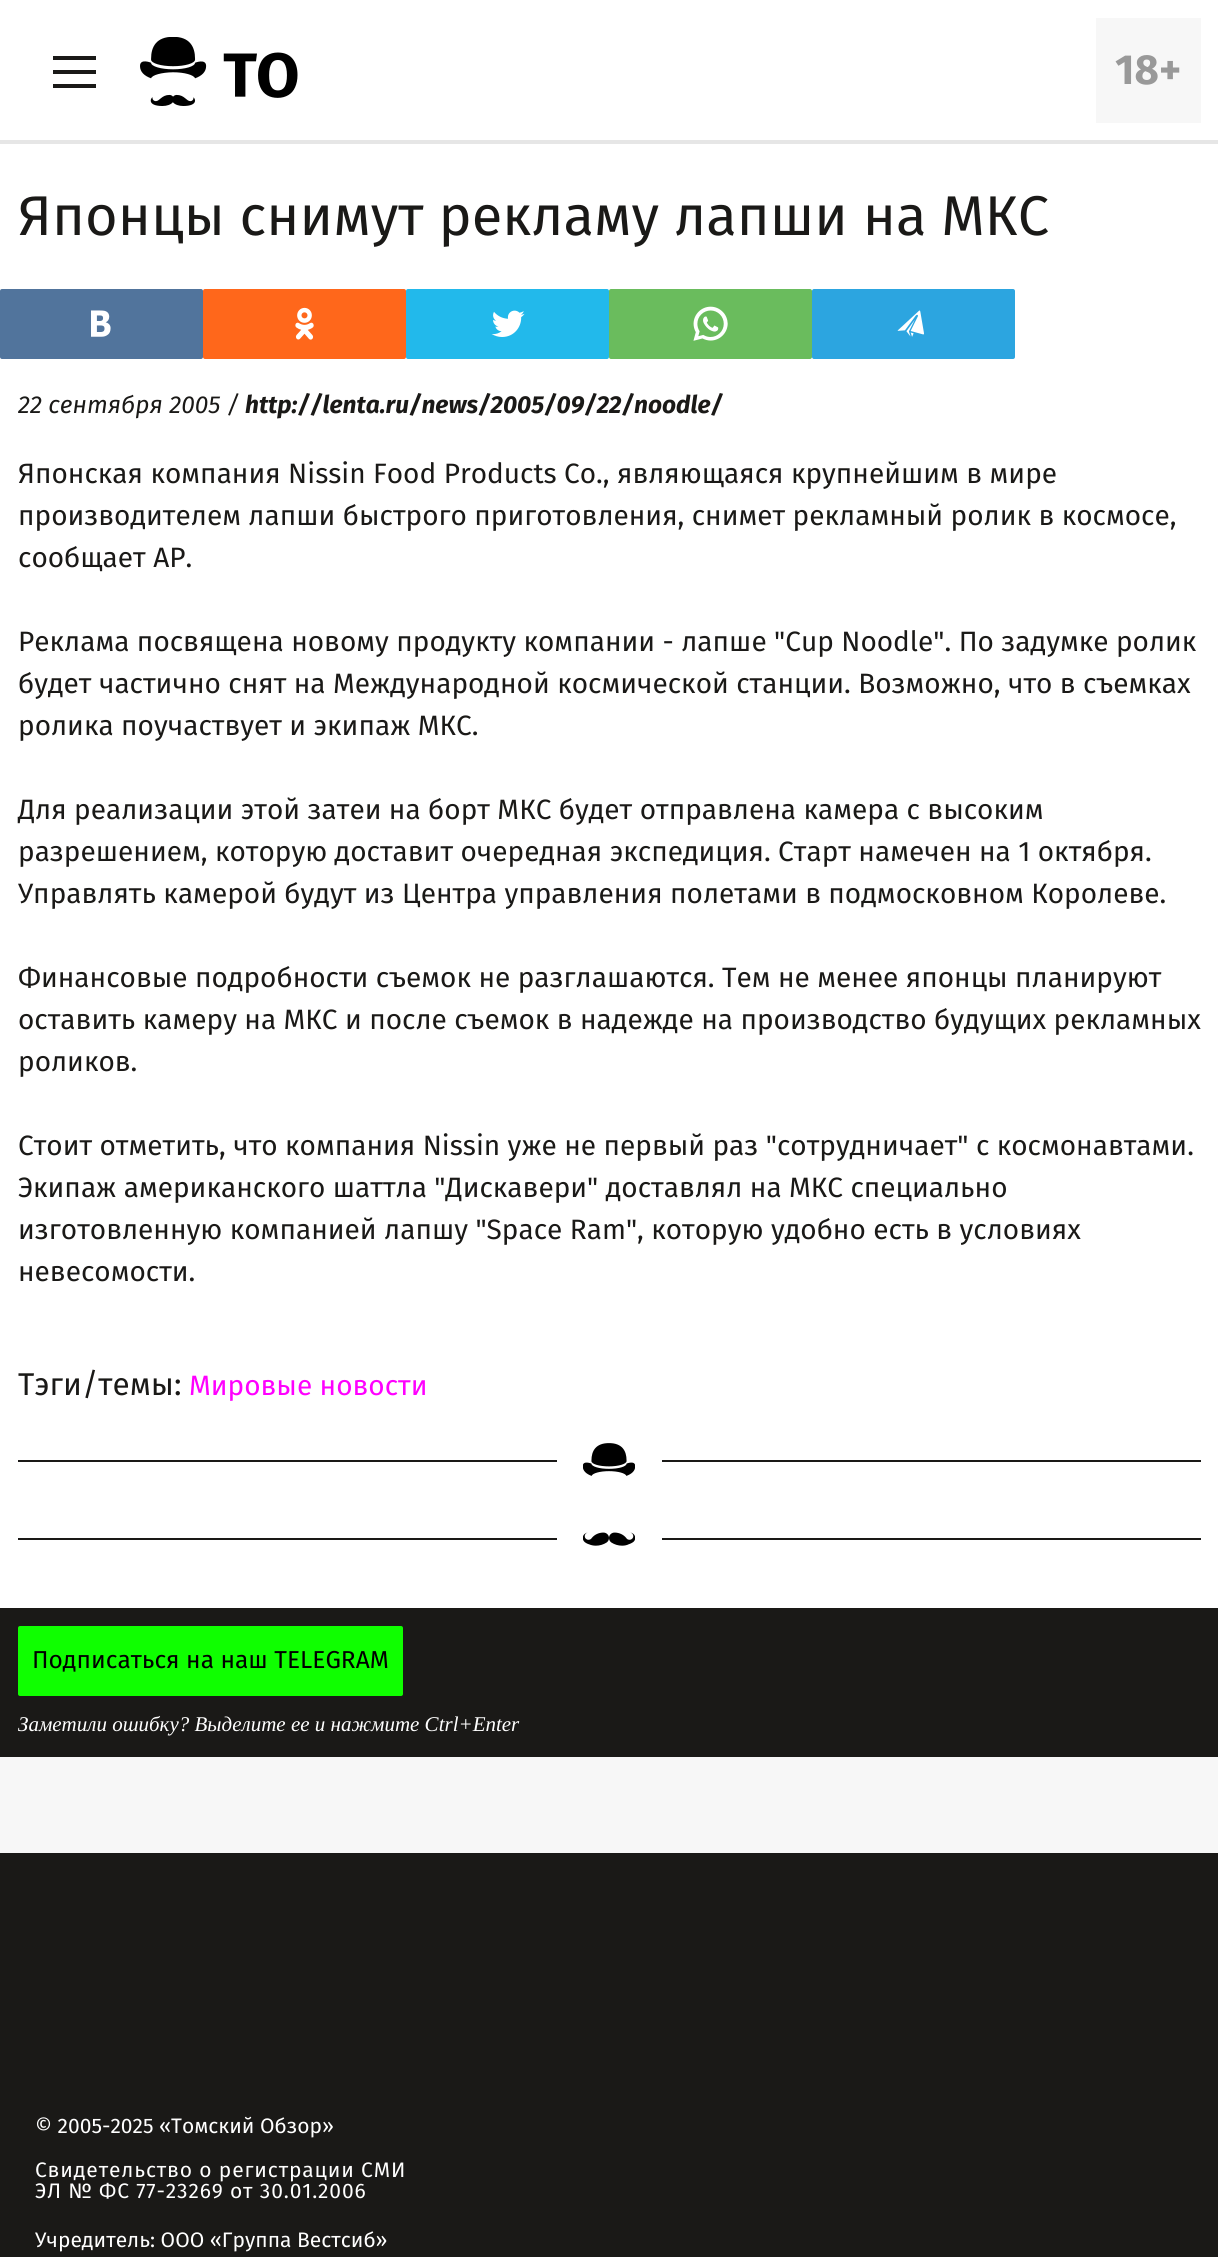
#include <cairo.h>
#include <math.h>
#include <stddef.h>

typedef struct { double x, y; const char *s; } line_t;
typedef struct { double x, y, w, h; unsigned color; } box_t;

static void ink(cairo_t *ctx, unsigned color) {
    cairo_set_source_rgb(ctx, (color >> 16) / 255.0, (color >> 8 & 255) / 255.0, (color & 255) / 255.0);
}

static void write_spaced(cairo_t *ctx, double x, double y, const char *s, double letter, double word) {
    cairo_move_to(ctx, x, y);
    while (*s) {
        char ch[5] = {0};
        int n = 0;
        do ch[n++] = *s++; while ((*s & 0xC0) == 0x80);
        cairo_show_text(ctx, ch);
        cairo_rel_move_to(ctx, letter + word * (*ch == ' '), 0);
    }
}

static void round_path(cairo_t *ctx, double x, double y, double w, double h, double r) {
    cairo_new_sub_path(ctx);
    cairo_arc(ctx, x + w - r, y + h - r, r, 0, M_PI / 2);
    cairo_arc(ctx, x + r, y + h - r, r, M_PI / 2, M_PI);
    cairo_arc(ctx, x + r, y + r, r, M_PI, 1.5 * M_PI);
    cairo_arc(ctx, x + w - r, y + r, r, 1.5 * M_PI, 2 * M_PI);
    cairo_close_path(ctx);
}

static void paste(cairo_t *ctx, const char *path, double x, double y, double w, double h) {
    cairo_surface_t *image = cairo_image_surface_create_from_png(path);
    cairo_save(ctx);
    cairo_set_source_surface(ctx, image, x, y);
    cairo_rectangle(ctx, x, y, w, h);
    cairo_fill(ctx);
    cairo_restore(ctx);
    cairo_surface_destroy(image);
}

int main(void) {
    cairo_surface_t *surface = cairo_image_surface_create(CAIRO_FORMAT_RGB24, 1218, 2257);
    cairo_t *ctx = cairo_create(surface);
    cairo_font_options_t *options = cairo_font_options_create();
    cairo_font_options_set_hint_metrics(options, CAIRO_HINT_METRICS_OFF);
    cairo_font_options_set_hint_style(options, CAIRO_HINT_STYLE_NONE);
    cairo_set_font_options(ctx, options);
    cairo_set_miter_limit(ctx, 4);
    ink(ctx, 0xF7F7F7);
    cairo_paint(ctx);
    {
        static const box_t items[] = {
            {0, 0, 1218, 140, 0xFFFFFF},
            {0, 140, 1218, 4, 0xE6E6E6},
            {53, 70, 43, 4, 0x1A1917},
            {53, 56, 43, 4, 0x1A1917},
            {53, 84, 43, 4, 0x1A1917},
        };
        for (size_t i = 0; i < sizeof items / sizeof *items; i++) {
            ink(ctx, items[i].color);
            cairo_rectangle(ctx, items[i].x, items[i].y, items[i].w, items[i].h);
            cairo_fill(ctx);
        }
    }
    paste(ctx, "media/1.png", 140, 37, 158, 69);
    ink(ctx, 0xF7F7F7);
    cairo_rectangle(ctx, 1096, 18, 105, 105);
    cairo_fill(ctx);
    cairo_select_font_face(ctx, "Fira Sans", CAIRO_FONT_SLANT_NORMAL, CAIRO_FONT_WEIGHT_BOLD);
    cairo_set_font_size(ctx, 42);
    ink(ctx, 0x999999);
    cairo_move_to(ctx, 1115, 84);
    cairo_show_text(ctx, "18+");
    ink(ctx, 0xFFFFFF);
    cairo_rectangle(ctx, 0, 144, 1218, 1464);
    cairo_fill(ctx);
    cairo_select_font_face(ctx, "Fira Sans", CAIRO_FONT_SLANT_NORMAL, CAIRO_FONT_WEIGHT_NORMAL);
    cairo_set_font_size(ctx, 56);
    ink(ctx, 0x1A1917);
    cairo_move_to(ctx, 18, 235);
    cairo_show_text(ctx, "Японцы снимут рекламу лапши на МКС");
    ink(ctx, 0x51749C);
    round_path(ctx, 0, 289, 203, 70, 2);
    cairo_fill(ctx);
    paste(ctx, "media/2.png", 91, 310, 20, 27);
    ink(ctx, 0xFF671B);
    round_path(ctx, 203, 289, 203, 70, 2);
    cairo_fill(ctx);
    paste(ctx, "media/3.png", 295, 307, 19, 33);
    ink(ctx, 0x22B9EB);
    round_path(ctx, 406, 289, 203, 70, 2);
    cairo_fill(ctx);
    paste(ctx, "media/4.png", 491, 310, 34, 27);
    ink(ctx, 0x6ABC5D);
    round_path(ctx, 609, 289, 203, 70, 2);
    cairo_fill(ctx);
    paste(ctx, "media/5.png", 693, 306, 35, 35);
    ink(ctx, 0x2CA5E0);
    round_path(ctx, 812, 289, 203, 70, 2);
    cairo_fill(ctx);
    paste(ctx, "media/6.png", 897, 310, 27, 27);
    cairo_select_font_face(ctx, "Fira Sans", CAIRO_FONT_SLANT_ITALIC, CAIRO_FONT_WEIGHT_NORMAL);
    cairo_set_font_size(ctx, 24.5);
    ink(ctx, 0x1A1917);
    cairo_move_to(ctx, 18, 413);
    cairo_show_text(ctx, "22 сентября 2005 /");
    cairo_select_font_face(ctx, "Fira Sans", CAIRO_FONT_SLANT_ITALIC, CAIRO_FONT_WEIGHT_BOLD);
    cairo_move_to(ctx, 245, 413);
    cairo_show_text(ctx, "http://lenta.ru/news/2005/09/22/noodle/");
    cairo_select_font_face(ctx, "Fira Sans", CAIRO_FONT_SLANT_NORMAL, CAIRO_FONT_WEIGHT_NORMAL);
    cairo_set_font_size(ctx, 28);
    {
        static const line_t items[] = {
            {18, 483, "Японская компания Nissin Food Products Co., являющаяся крупнейшим в мире"},
            {18, 525, "производителем лапши быстрого приготовления, снимет рекламный ролик в космосе,"},
            {18, 567, "сообщает AP."},
            {18, 651, "Реклама посвящена новому продукту компании - лапше \"Cup Noodle\". По задумке ролик"},
            {18, 693, "будет частично снят на Международной космической станции. Возможно, что в съемках"},
            {18, 735, "ролика поучаствует и экипаж МКС."},
            {18, 819, "Для реализации этой затеи на борт МКС будет отправлена камера с высоким"},
            {18, 861, "разрешением, которую доставит очередная экспедиция. Старт намечен на 1 октября."},
            {18, 903, "Управлять камерой будут из Центра управления полетами в подмосковном Королеве."},
            {18, 987, "Финансовые подробности съемок не разглашаются. Тем не менее японцы планируют"},
            {18, 1029, "оставить камеру на МКС и после съемок в надежде на производство будущих рекламных"},
            {18, 1071, "роликов."},
            {18, 1155, "Стоит отметить, что компания Nissin уже не первый раз \"сотрудничает\" с космонавтами."},
            {18, 1197, "Экипаж американского шаттла \"Дискавери\" доставлял на МКС специально"},
            {18, 1239, "изготовленную компанией лапшу \"Space Ram\", которую удобно есть в условиях"},
            {18, 1281, "невесомости."},
        };
        for (size_t i = 0; i < sizeof items / sizeof *items; i++) {
            cairo_move_to(ctx, items[i].x, items[i].y);
            cairo_show_text(ctx, items[i].s);
        }
    }
    cairo_set_font_size(ctx, 31.5);
    cairo_move_to(ctx, 18, 1395);
    cairo_show_text(ctx, "Тэги/темы:");
    cairo_set_font_size(ctx, 28);
    ink(ctx, 0xFF00FF);
    cairo_move_to(ctx, 189, 1395);
    cairo_show_text(ctx, "Мировые новости");
    paste(ctx, "media/7.png", 583, 1443, 52, 33);
    ink(ctx, 0x1A1917);
    cairo_rectangle(ctx, 18, 1460, 539, 2);
    cairo_fill(ctx);
    cairo_rectangle(ctx, 662, 1460, 539, 2);
    cairo_fill(ctx);
    paste(ctx, "media/8.png", 583, 1532, 52, 14);
    {
        static const box_t items[] = {
            {18, 1538, 539, 2, 0x1A1917},
            {662, 1538, 539, 2, 0x1A1917},
            {0, 1608, 1218, 149, 0x1A1917},
        };
        for (size_t i = 0; i < sizeof items / sizeof *items; i++) {
            ink(ctx, items[i].color);
            cairo_rectangle(ctx, items[i].x, items[i].y, items[i].w, items[i].h);
            cairo_fill(ctx);
        }
    }
    ink(ctx, 0x0FFF00);
    round_path(ctx, 18, 1626, 385, 70, 2);
    cairo_fill(ctx);
    cairo_set_font_size(ctx, 24.5);
    ink(ctx, 0x000000);
    cairo_move_to(ctx, 32, 1668);
    cairo_show_text(ctx, "Подписаться на наш TELEGRAM");
    cairo_select_font_face(ctx, "Liberation Serif", CAIRO_FONT_SLANT_ITALIC, CAIRO_FONT_WEIGHT_NORMAL);
    cairo_set_font_size(ctx, 21);
    ink(ctx, 0xFFFFFF);
    cairo_move_to(ctx, 18, 1731);
    cairo_show_text(ctx, "Заметили ошибку? Выделите ее и нажмите Ctrl+Enter");
    ink(ctx, 0x1A1917);
    cairo_rectangle(ctx, 0, 1853, 1218, 404);
    cairo_fill(ctx);
    cairo_select_font_face(ctx, "Fira Sans", CAIRO_FONT_SLANT_NORMAL, CAIRO_FONT_WEIGHT_NORMAL);
    ink(ctx, 0xFFFFFF);
    cairo_move_to(ctx, 35, 2133);
    cairo_show_text(ctx, "© 2005-2025 «Томский Обзор»");
    write_spaced(ctx, 35, 2177, "Свидетельство о регистрации СМИ", 0.85, 0);
    write_spaced(ctx, 35, 2198, "ЭЛ № ФС 77-23269 от 30.01.2006", 0.85, 0);
    cairo_move_to(ctx, 35, 2247);
    cairo_show_text(ctx, "Учредитель: ООО «Группа Вестсиб»");
    cairo_surface_write_to_png(surface, "image.png");
    cairo_font_options_destroy(options);
    cairo_destroy(ctx);
    cairo_surface_destroy(surface);
    return 0;
}
